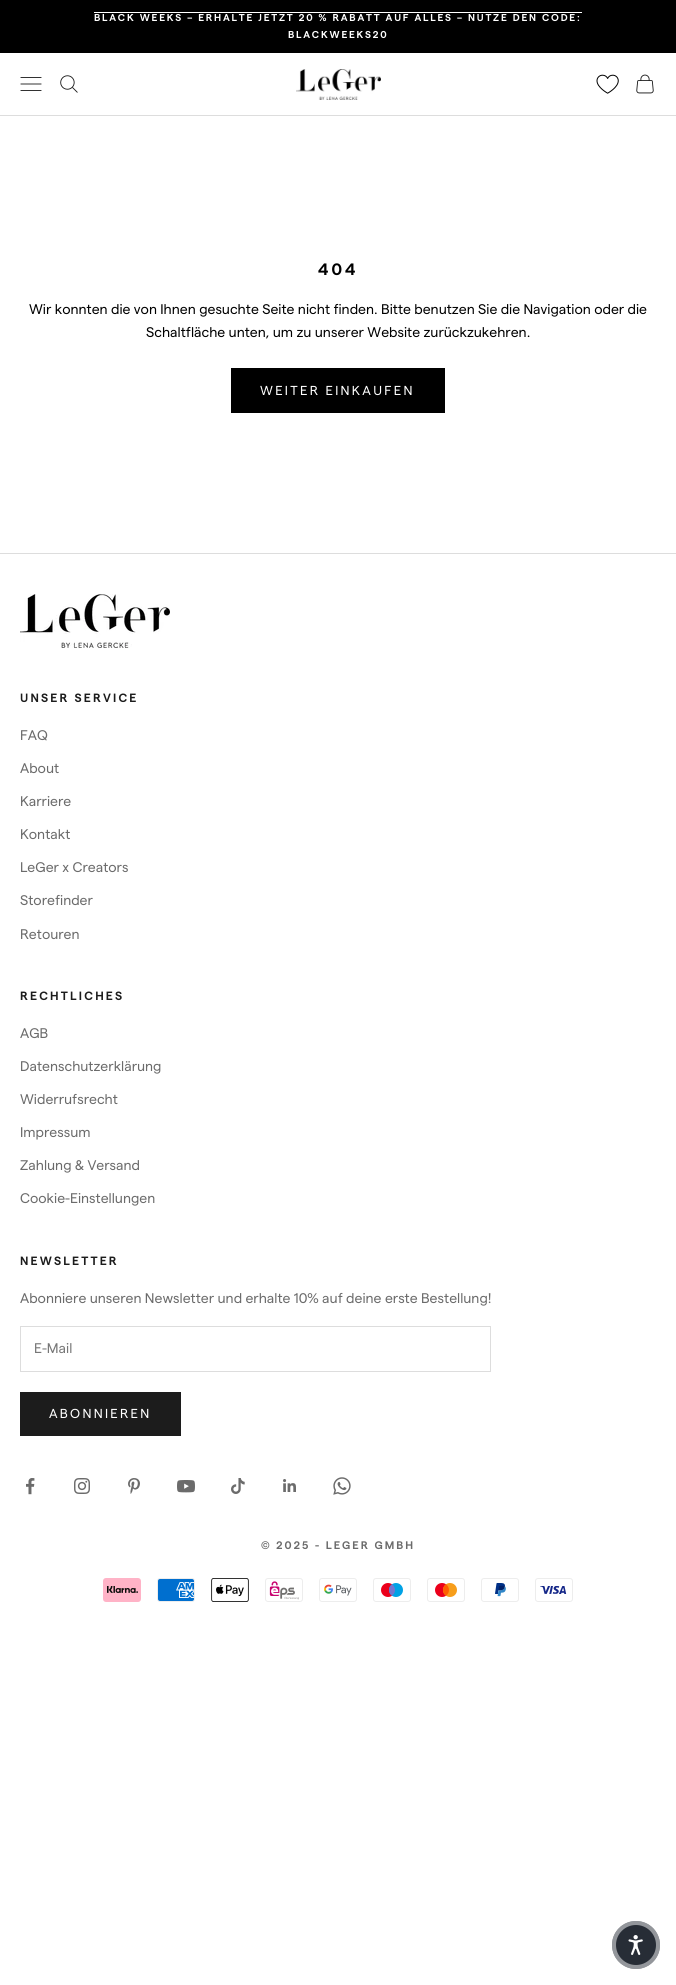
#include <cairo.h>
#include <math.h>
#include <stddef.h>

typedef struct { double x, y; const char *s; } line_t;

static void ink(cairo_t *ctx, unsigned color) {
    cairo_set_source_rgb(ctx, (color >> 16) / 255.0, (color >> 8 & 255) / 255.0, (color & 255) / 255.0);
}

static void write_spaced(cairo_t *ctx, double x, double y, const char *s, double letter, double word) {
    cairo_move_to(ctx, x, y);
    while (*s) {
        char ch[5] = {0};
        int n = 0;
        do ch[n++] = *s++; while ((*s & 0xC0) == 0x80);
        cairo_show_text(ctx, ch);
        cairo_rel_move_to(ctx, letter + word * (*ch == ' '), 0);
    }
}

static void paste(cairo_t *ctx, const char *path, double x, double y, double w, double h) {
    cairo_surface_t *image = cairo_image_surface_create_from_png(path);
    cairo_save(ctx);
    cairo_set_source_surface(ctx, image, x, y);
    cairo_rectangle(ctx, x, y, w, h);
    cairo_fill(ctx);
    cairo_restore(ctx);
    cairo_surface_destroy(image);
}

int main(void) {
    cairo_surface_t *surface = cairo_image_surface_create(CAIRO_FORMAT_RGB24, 676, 1985);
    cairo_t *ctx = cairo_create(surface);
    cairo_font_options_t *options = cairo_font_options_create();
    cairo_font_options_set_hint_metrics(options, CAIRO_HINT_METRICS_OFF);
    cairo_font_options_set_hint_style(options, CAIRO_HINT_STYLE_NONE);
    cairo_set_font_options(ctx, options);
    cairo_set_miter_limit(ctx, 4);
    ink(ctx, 0xFFFFFF);
    cairo_paint(ctx);
    ink(ctx, 0x000000);
    cairo_rectangle(ctx, 0, 0, 676, 53);
    cairo_fill(ctx);
    cairo_select_font_face(ctx, "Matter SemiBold", CAIRO_FONT_SLANT_NORMAL, CAIRO_FONT_WEIGHT_NORMAL);
    cairo_set_font_size(ctx, 10);
    ink(ctx, 0xFFFFFF);
    write_spaced(ctx, 94, 21, "BLACK WEEKS – ERHALTE JETZT 20 % RABATT AUF ALLES – NUTZE DEN CODE:", 1.8, 0);
    cairo_rectangle(ctx, 94, 12, 488, 1);
    cairo_fill(ctx);
    write_spaced(ctx, 288, 38, "BLACKWEEKS20", 1.8, 0);
    ink(ctx, 0xDDDDDD);
    cairo_rectangle(ctx, 0, 115, 676, 1);
    cairo_fill(ctx);
    cairo_new_path(ctx);
    cairo_move_to(ctx, 21, 90.5);
    cairo_line_to(ctx, 41, 90.5);
    cairo_move_to(ctx, 21, 84);
    cairo_line_to(ctx, 41, 84);
    cairo_move_to(ctx, 21, 77.5);
    cairo_line_to(ctx, 41, 77.5);
    ink(ctx, 0x1C1C1C);
    cairo_set_line_width(ctx, 0.9);
    cairo_set_line_cap(ctx, CAIRO_LINE_CAP_SQUARE);
    cairo_stroke(ctx);
    paste(ctx, "media/1.png", 60, 75, 18, 18);
    paste(ctx, "media/2.png", 296, 69, 85, 31);
    paste(ctx, "media/3.png", 596, 74, 23, 20);
    paste(ctx, "media/4.png", 636, 74, 18, 20);
    cairo_set_font_size(ctx, 16.5);
    ink(ctx, 0x000000);
    write_spaced(ctx, 318, 275, "404", 3, 0);
    cairo_select_font_face(ctx, "Matter", CAIRO_FONT_SLANT_NORMAL, CAIRO_FONT_WEIGHT_NORMAL);
    cairo_set_font_size(ctx, 14);
    cairo_move_to(ctx, 29, 314);
    cairo_show_text(ctx, "Wir konnten die von Ihnen gesuchte Seite nicht finden. Bitte benutzen Sie die Navigation oder die");
    cairo_move_to(ctx, 146, 337);
    cairo_show_text(ctx, "Schaltfläche unten, um zu unserer Website zurückzukehren.");
    cairo_rectangle(ctx, 231.5, 368.5, 213, 44);
    cairo_fill_preserve(ctx);
    cairo_set_line_width(ctx, 1);
    cairo_set_line_cap(ctx, CAIRO_LINE_CAP_BUTT);
    cairo_stroke(ctx);
    cairo_set_font_size(ctx, 13);
    ink(ctx, 0xFFFFFF);
    write_spaced(ctx, 260, 395, "WEITER EINKAUFEN", 2.3, 0);
    ink(ctx, 0xDDDDDD);
    cairo_rectangle(ctx, 0, 553, 676, 1);
    cairo_fill(ctx);
    paste(ctx, "media/5.png", 20, 594, 150, 54);
    cairo_select_font_face(ctx, "Matter SemiBold", CAIRO_FONT_SLANT_NORMAL, CAIRO_FONT_WEIGHT_NORMAL);
    cairo_set_font_size(ctx, 12);
    ink(ctx, 0x1C1C1C);
    write_spaced(ctx, 20, 702, "UNSER SERVICE", 2.2, 0);
    cairo_select_font_face(ctx, "Matter", CAIRO_FONT_SLANT_NORMAL, CAIRO_FONT_WEIGHT_NORMAL);
    cairo_set_font_size(ctx, 14);
    ink(ctx, 0x6B6B6B);
    {
        static const line_t items[] = {
            {20, 740, "FAQ"},
            {20, 773, "About"},
            {20, 806, "Karriere"},
            {20, 839, "Kontakt"},
            {20, 872, "LeGer x Creators"},
            {20, 905, "Storefinder"},
            {20, 939, "Retouren"},
        };
        for (size_t i = 0; i < sizeof items / sizeof *items; i++) {
            cairo_move_to(ctx, items[i].x, items[i].y);
            cairo_show_text(ctx, items[i].s);
        }
    }
    cairo_select_font_face(ctx, "Matter SemiBold", CAIRO_FONT_SLANT_NORMAL, CAIRO_FONT_WEIGHT_NORMAL);
    cairo_set_font_size(ctx, 12);
    ink(ctx, 0x1C1C1C);
    write_spaced(ctx, 20, 1000, "RECHTLICHES", 2.2, 0);
    cairo_select_font_face(ctx, "Matter", CAIRO_FONT_SLANT_NORMAL, CAIRO_FONT_WEIGHT_NORMAL);
    cairo_set_font_size(ctx, 14);
    ink(ctx, 0x6B6B6B);
    {
        static const line_t items[] = {
            {20, 1038, "AGB"},
            {20, 1071, "Datenschutzerklärung"},
            {20, 1104, "Widerrufsrecht"},
            {20, 1137, "Impressum"},
            {20, 1170, "Zahlung & Versand"},
            {20, 1203, "Cookie-Einstellungen"},
        };
        for (size_t i = 0; i < sizeof items / sizeof *items; i++) {
            cairo_move_to(ctx, items[i].x, items[i].y);
            cairo_show_text(ctx, items[i].s);
        }
    }
    cairo_select_font_face(ctx, "Matter SemiBold", CAIRO_FONT_SLANT_NORMAL, CAIRO_FONT_WEIGHT_NORMAL);
    cairo_set_font_size(ctx, 12);
    ink(ctx, 0x1C1C1C);
    write_spaced(ctx, 20, 1265, "NEWSLETTER", 2.2, 0);
    cairo_select_font_face(ctx, "Matter", CAIRO_FONT_SLANT_NORMAL, CAIRO_FONT_WEIGHT_NORMAL);
    cairo_set_font_size(ctx, 14);
    ink(ctx, 0x6B6B6B);
    cairo_move_to(ctx, 20, 1303);
    cairo_show_text(ctx, "Abonniere unseren Newsletter und erhalte 10% auf deine erste Bestellung!");
    cairo_rectangle(ctx, 20.5, 1326.5, 470, 45);
    ink(ctx, 0xDDDDDD);
    cairo_stroke(ctx);
    ink(ctx, 0x777777);
    cairo_move_to(ctx, 34, 1353);
    cairo_show_text(ctx, "E-Mail");
    ink(ctx, 0x1C1C1C);
    cairo_rectangle(ctx, 20.5, 1392.5, 160, 43);
    cairo_fill_preserve(ctx);
    cairo_stroke(ctx);
    cairo_set_font_size(ctx, 13);
    ink(ctx, 0xFFFFFF);
    write_spaced(ctx, 49, 1418, "ABONNIEREN", 2.3, 0);
    paste(ctx, "media/6.png", 26, 1478, 9, 17);
    paste(ctx, "media/7.png", 74, 1478, 16, 16);
    paste(ctx, "media/8.png", 128, 1478, 12, 16);
    paste(ctx, "media/9.png", 177, 1480, 18, 13);
    paste(ctx, "media/10.png", 231, 1478, 14, 16);
    paste(ctx, "media/11.png", 283, 1479, 13, 13);
    paste(ctx, "media/12.png", 333, 1477, 18, 18);
    cairo_select_font_face(ctx, "Matter SemiBold", CAIRO_FONT_SLANT_NORMAL, CAIRO_FONT_WEIGHT_NORMAL);
    cairo_set_font_size(ctx, 11);
    ink(ctx, 0x6B6B6B);
    write_spaced(ctx, 261, 1549, "© 2025 - LEGER GMBH", 2, 0);
    paste(ctx, "media/13.png", 103, 1578, 38, 24);
    paste(ctx, "media/14.png", 157, 1578, 38, 24);
    paste(ctx, "media/15.png", 211, 1578, 38, 24);
    paste(ctx, "media/16.png", 265, 1578, 38, 24);
    paste(ctx, "media/17.png", 319, 1578, 38, 24);
    paste(ctx, "media/18.png", 373, 1578, 38, 24);
    paste(ctx, "media/19.png", 427, 1578, 38, 24);
    paste(ctx, "media/20.png", 481, 1578, 38, 24);
    paste(ctx, "media/21.png", 535, 1578, 38, 24);
    ink(ctx, 0x272D36);
    cairo_arc(ctx, 636, 1945, 24, 0, 2 * M_PI);
    cairo_fill(ctx);
    cairo_arc(ctx, 636, 1945, 22, 0, 2 * M_PI);
    cairo_set_source_rgba(ctx, 1, 1, 1, 0.5);
    cairo_set_line_width(ctx, 4);
    cairo_stroke(ctx);
    paste(ctx, "media/22.png", 628, 1935, 15, 20);
    cairo_surface_write_to_png(surface, "image.png");
    cairo_font_options_destroy(options);
    cairo_destroy(ctx);
    cairo_surface_destroy(surface);
    return 0;
}
